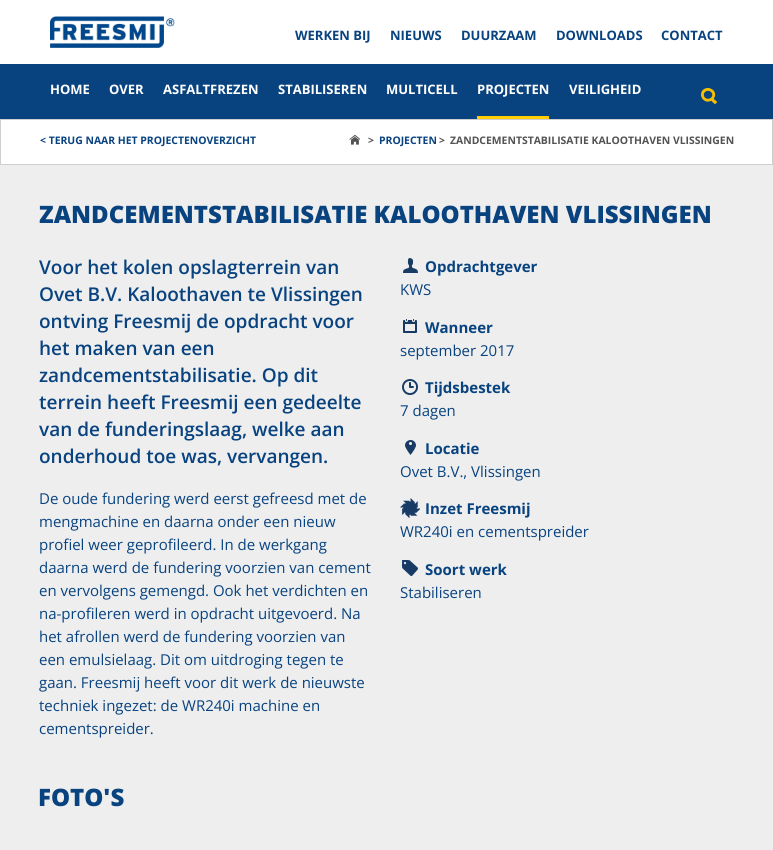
#include <cairo.h>
#include <math.h>
#include <stddef.h>

typedef struct { double x, y; const char *s; } line_t;

static void ink(cairo_t *ctx, unsigned color) {
    cairo_set_source_rgb(ctx, (color >> 16) / 255.0, (color >> 8 & 255) / 255.0, (color & 255) / 255.0);
}

static void paste(cairo_t *ctx, const char *path, double x, double y, double w, double h) {
    cairo_surface_t *image = cairo_image_surface_create_from_png(path);
    cairo_save(ctx);
    cairo_set_source_surface(ctx, image, x, y);
    cairo_rectangle(ctx, x, y, w, h);
    cairo_fill(ctx);
    cairo_restore(ctx);
    cairo_surface_destroy(image);
}

int main(void) {
    cairo_surface_t *surface = cairo_image_surface_create(CAIRO_FORMAT_RGB24, 773, 850);
    cairo_t *ctx = cairo_create(surface);
    cairo_font_options_t *options = cairo_font_options_create();
    cairo_font_options_set_hint_metrics(options, CAIRO_HINT_METRICS_OFF);
    cairo_font_options_set_hint_style(options, CAIRO_HINT_STYLE_NONE);
    cairo_set_font_options(ctx, options);
    cairo_set_miter_limit(ctx, 4);
    ink(ctx, 0xEEEEEE);
    cairo_paint(ctx);
    ink(ctx, 0xFFFFFF);
    cairo_rectangle(ctx, 0, 0, 773, 64);
    cairo_fill(ctx);
    paste(ctx, "media/1.png", 50, 16, 125, 32);
    cairo_select_font_face(ctx, "Open Sans", CAIRO_FONT_SLANT_NORMAL, CAIRO_FONT_WEIGHT_BOLD);
    cairo_set_font_size(ctx, 13);
    ink(ctx, 0x084380);
    {
        static const line_t items[] = {
            {295, 40, "WERKEN BIJ"},
            {390, 40, "NIEUWS"},
            {461, 40, "DUURZAAM"},
            {556, 40, "DOWNLOADS"},
            {661, 40, "CONTACT"},
        };
        for (size_t i = 0; i < sizeof items / sizeof *items; i++) {
            cairo_move_to(ctx, items[i].x, items[i].y);
            cairo_show_text(ctx, items[i].s);
        }
    }
    cairo_rectangle(ctx, 0, 64, 773, 55);
    cairo_fill(ctx);
    ink(ctx, 0xFFFFFF);
    {
        static const line_t items[] = {
            {50, 94, "HOME"},
            {109, 94, "OVER"},
            {163, 94, "ASFALTFREZEN"},
            {278, 94, "STABILISEREN"},
            {386, 94, "MULTICELL"},
            {477, 94, "PROJECTEN"},
        };
        for (size_t i = 0; i < sizeof items / sizeof *items; i++) {
            cairo_move_to(ctx, items[i].x, items[i].y);
            cairo_show_text(ctx, items[i].s);
        }
    }
    ink(ctx, 0xFFCD00);
    cairo_rectangle(ctx, 477, 116, 72, 3);
    cairo_fill(ctx);
    ink(ctx, 0xFFFFFF);
    cairo_move_to(ctx, 569, 94);
    cairo_show_text(ctx, "VEILIGHEID");
    paste(ctx, "media/2.png", 701, 88, 16, 16);
    cairo_rectangle(ctx, 0.5, 119.5, 772, 45);
    cairo_fill_preserve(ctx);
    ink(ctx, 0xCFCFCF);
    cairo_set_line_width(ctx, 1);
    cairo_stroke(ctx);
    cairo_set_font_size(ctx, 10.4);
    ink(ctx, 0x084380);
    cairo_move_to(ctx, 40, 144);
    cairo_show_text(ctx, "< TERUG NAAR HET PROJECTENOVERZICHT");
    paste(ctx, "media/3.png", 349, 134, 11, 11);
    ink(ctx, 0x535353);
    cairo_move_to(ctx, 368, 144);
    cairo_show_text(ctx, ">");
    ink(ctx, 0x084380);
    cairo_move_to(ctx, 379, 144);
    cairo_show_text(ctx, "PROJECTEN");
    ink(ctx, 0x535353);
    cairo_move_to(ctx, 439, 144);
    cairo_show_text(ctx, ">");
    cairo_move_to(ctx, 450, 144);
    cairo_show_text(ctx, "ZANDCEMENTSTABILISATIE KALOOTHAVEN VLISSINGEN");
    cairo_select_font_face(ctx, "Open Sans ExtraBold", CAIRO_FONT_SLANT_NORMAL, CAIRO_FONT_WEIGHT_NORMAL);
    cairo_set_font_size(ctx, 24);
    ink(ctx, 0x084380);
    cairo_move_to(ctx, 39, 223);
    cairo_show_text(ctx, "ZANDCEMENTSTABILISATIE KALOOTHAVEN VLISSINGEN");
    cairo_select_font_face(ctx, "Open Sans SemiBold", CAIRO_FONT_SLANT_NORMAL, CAIRO_FONT_WEIGHT_NORMAL);
    cairo_set_font_size(ctx, 19);
    {
        static const line_t items[] = {
            {39, 274, "Voor het kolen opslagterrein van"},
            {39, 301, "Ovet B.V. Kaloothaven te Vlissingen"},
            {39, 328, "ontving Freesmij de opdracht voor"},
            {39, 355, "het maken van een"},
            {39, 382, "zandcementstabilisatie. Op dit"},
            {39, 409, "terrein heeft Freesmij een gedeelte"},
            {39, 436, "van de funderingslaag, welke aan"},
            {39, 463, "onderhoud toe was, vervangen."},
        };
        for (size_t i = 0; i < sizeof items / sizeof *items; i++) {
            cairo_move_to(ctx, items[i].x, items[i].y);
            cairo_show_text(ctx, items[i].s);
        }
    }
    cairo_select_font_face(ctx, "Open Sans", CAIRO_FONT_SLANT_NORMAL, CAIRO_FONT_WEIGHT_NORMAL);
    cairo_set_font_size(ctx, 15);
    {
        static const line_t items[] = {
            {39, 504, "De oude fundering werd eerst gefreesd met de"},
            {39, 527, "mengmachine en daarna onder een nieuw"},
            {39, 550, "profiel weer geprofileerd. In de werkgang"},
            {39, 573, "daarna werd de fundering voorzien van cement"},
            {39, 596, "en vervolgens gemengd. Ook het verdichten en"},
            {39, 619, "na-profileren werd in opdracht uitgevoerd. Na"},
            {39, 642, "het afrollen werd de fundering voorzien van"},
            {39, 665, "een emulsielaag. Dit om uitdroging tegen te"},
            {39, 688, "gaan. Freesmij heeft voor dit werk de nieuwste"},
            {39, 711, "techniek ingezet: de WR240i machine en"},
            {39, 734, "cementspreider."},
        };
        for (size_t i = 0; i < sizeof items / sizeof *items; i++) {
            cairo_move_to(ctx, items[i].x, items[i].y);
            cairo_show_text(ctx, items[i].s);
        }
    }
    paste(ctx, "media/4.png", 403, 258, 15, 15);
    cairo_select_font_face(ctx, "Open Sans", CAIRO_FONT_SLANT_NORMAL, CAIRO_FONT_WEIGHT_BOLD);
    cairo_move_to(ctx, 425, 272);
    cairo_show_text(ctx, "Opdrachtgever");
    cairo_select_font_face(ctx, "Open Sans", CAIRO_FONT_SLANT_NORMAL, CAIRO_FONT_WEIGHT_NORMAL);
    cairo_move_to(ctx, 400, 295);
    cairo_show_text(ctx, "KWS");
    paste(ctx, "media/5.png", 403, 319, 14, 14);
    cairo_select_font_face(ctx, "Open Sans", CAIRO_FONT_SLANT_NORMAL, CAIRO_FONT_WEIGHT_BOLD);
    cairo_move_to(ctx, 425, 333);
    cairo_show_text(ctx, "Wanneer");
    cairo_select_font_face(ctx, "Open Sans", CAIRO_FONT_SLANT_NORMAL, CAIRO_FONT_WEIGHT_NORMAL);
    cairo_move_to(ctx, 400, 356);
    cairo_show_text(ctx, "september 2017");
    paste(ctx, "media/6.png", 402, 379, 16, 16);
    cairo_select_font_face(ctx, "Open Sans", CAIRO_FONT_SLANT_NORMAL, CAIRO_FONT_WEIGHT_BOLD);
    cairo_move_to(ctx, 425, 393);
    cairo_show_text(ctx, "Tijdsbestek");
    cairo_select_font_face(ctx, "Open Sans", CAIRO_FONT_SLANT_NORMAL, CAIRO_FONT_WEIGHT_NORMAL);
    cairo_move_to(ctx, 400, 416);
    cairo_show_text(ctx, "7 dagen");
    paste(ctx, "media/7.png", 405, 440, 11, 15);
    cairo_select_font_face(ctx, "Open Sans", CAIRO_FONT_SLANT_NORMAL, CAIRO_FONT_WEIGHT_BOLD);
    cairo_move_to(ctx, 425, 454);
    cairo_show_text(ctx, "Locatie");
    cairo_select_font_face(ctx, "Open Sans", CAIRO_FONT_SLANT_NORMAL, CAIRO_FONT_WEIGHT_NORMAL);
    cairo_move_to(ctx, 400, 477);
    cairo_show_text(ctx, "Ovet B.V., Vlissingen");
    paste(ctx, "media/8.png", 400, 498, 20, 20);
    cairo_select_font_face(ctx, "Open Sans", CAIRO_FONT_SLANT_NORMAL, CAIRO_FONT_WEIGHT_BOLD);
    cairo_move_to(ctx, 425, 514);
    cairo_show_text(ctx, "Inzet Freesmij");
    cairo_select_font_face(ctx, "Open Sans", CAIRO_FONT_SLANT_NORMAL, CAIRO_FONT_WEIGHT_NORMAL);
    cairo_move_to(ctx, 400, 537);
    cairo_show_text(ctx, "WR240i en cementspreider");
    paste(ctx, "media/9.png", 402, 560, 16, 16);
    cairo_select_font_face(ctx, "Open Sans", CAIRO_FONT_SLANT_NORMAL, CAIRO_FONT_WEIGHT_BOLD);
    cairo_move_to(ctx, 425, 575);
    cairo_show_text(ctx, "Soort werk");
    cairo_select_font_face(ctx, "Open Sans", CAIRO_FONT_SLANT_NORMAL, CAIRO_FONT_WEIGHT_NORMAL);
    cairo_move_to(ctx, 400, 598);
    cairo_show_text(ctx, "Stabiliseren");
    cairo_select_font_face(ctx, "Open Sans ExtraBold", CAIRO_FONT_SLANT_NORMAL, CAIRO_FONT_WEIGHT_NORMAL);
    cairo_set_font_size(ctx, 24);
    cairo_move_to(ctx, 38, 806);
    cairo_show_text(ctx, "FOTO'S");
    cairo_surface_write_to_png(surface, "image.png");
    cairo_font_options_destroy(options);
    cairo_destroy(ctx);
    cairo_surface_destroy(surface);
    return 0;
}
